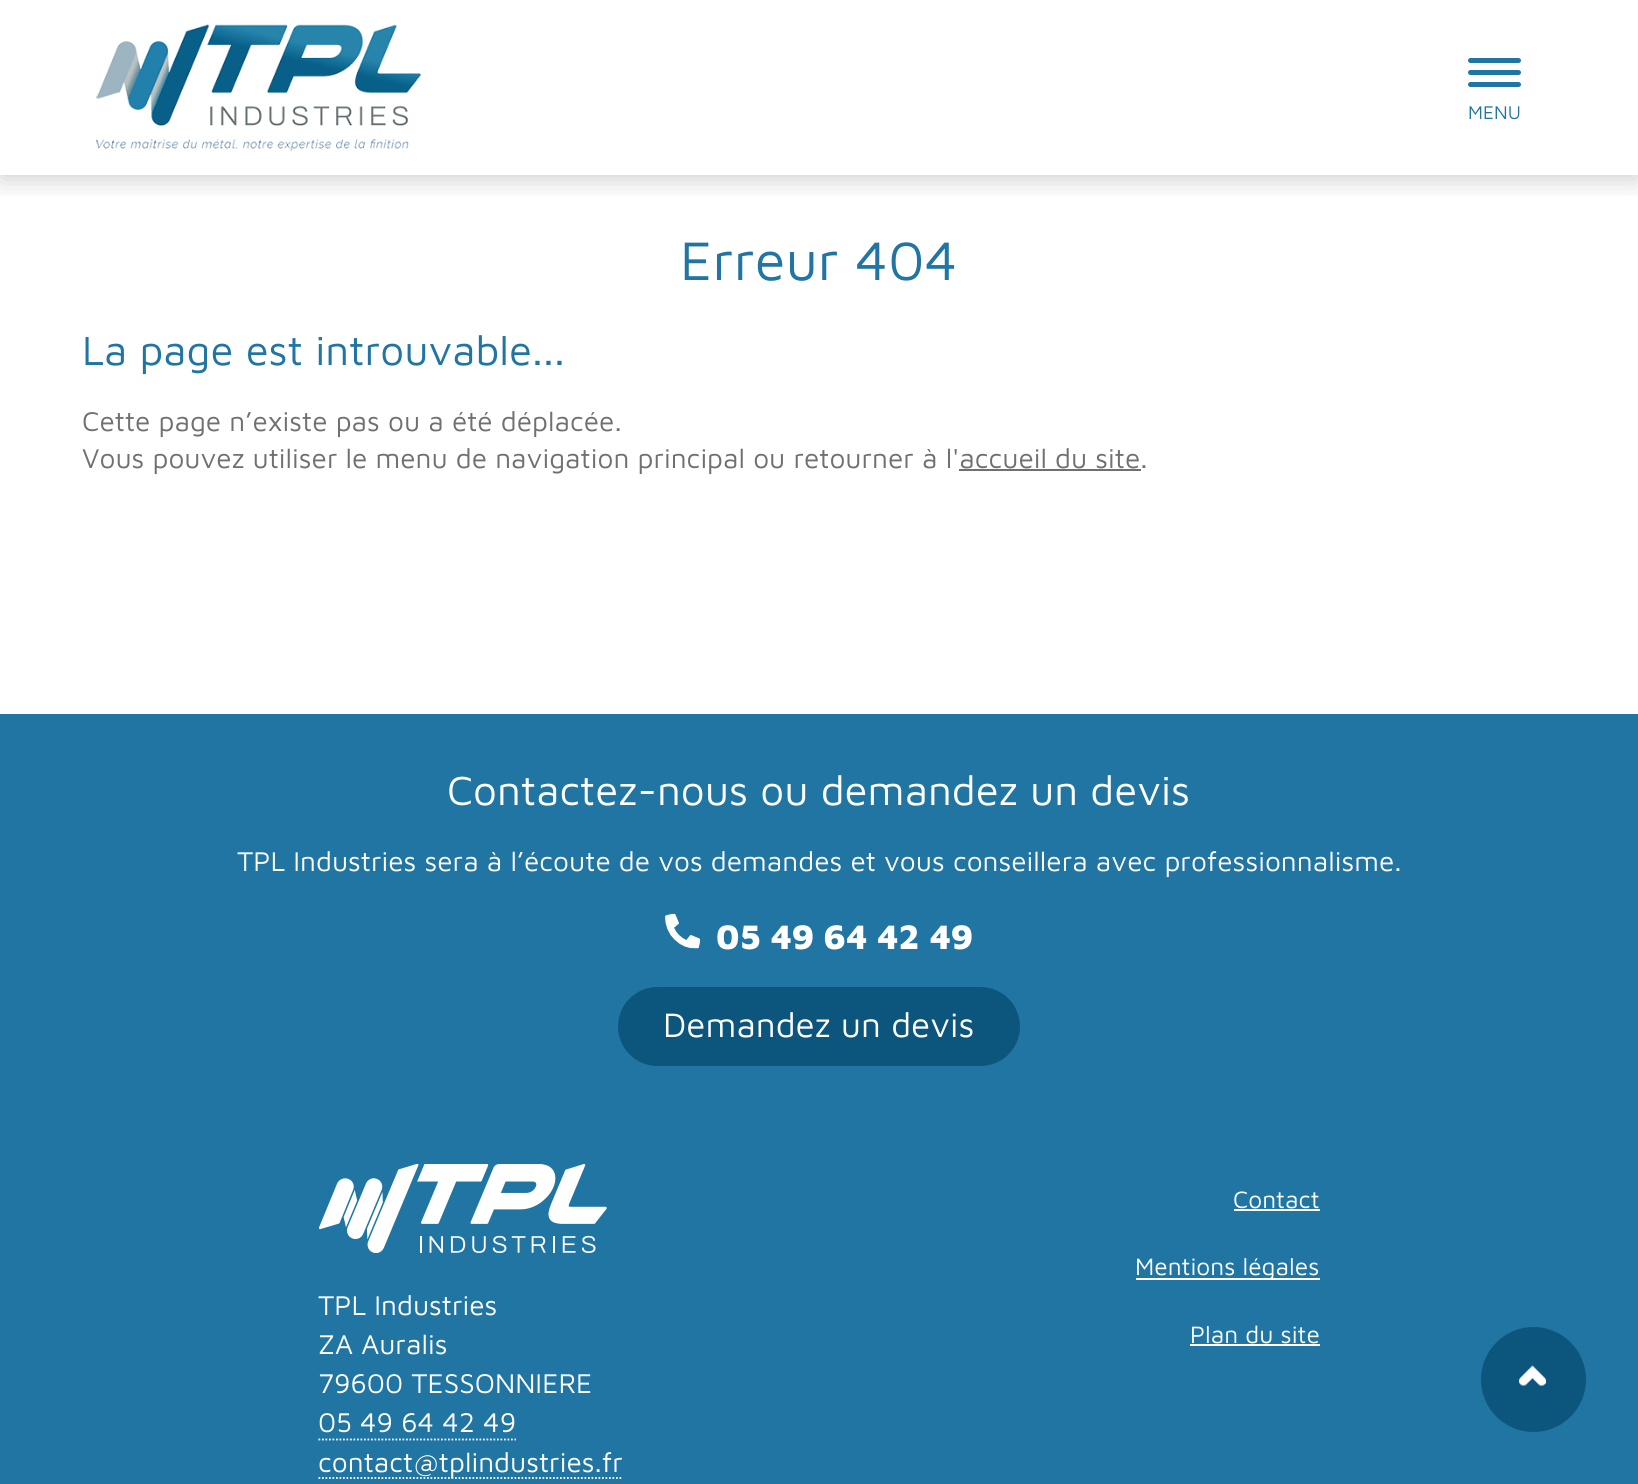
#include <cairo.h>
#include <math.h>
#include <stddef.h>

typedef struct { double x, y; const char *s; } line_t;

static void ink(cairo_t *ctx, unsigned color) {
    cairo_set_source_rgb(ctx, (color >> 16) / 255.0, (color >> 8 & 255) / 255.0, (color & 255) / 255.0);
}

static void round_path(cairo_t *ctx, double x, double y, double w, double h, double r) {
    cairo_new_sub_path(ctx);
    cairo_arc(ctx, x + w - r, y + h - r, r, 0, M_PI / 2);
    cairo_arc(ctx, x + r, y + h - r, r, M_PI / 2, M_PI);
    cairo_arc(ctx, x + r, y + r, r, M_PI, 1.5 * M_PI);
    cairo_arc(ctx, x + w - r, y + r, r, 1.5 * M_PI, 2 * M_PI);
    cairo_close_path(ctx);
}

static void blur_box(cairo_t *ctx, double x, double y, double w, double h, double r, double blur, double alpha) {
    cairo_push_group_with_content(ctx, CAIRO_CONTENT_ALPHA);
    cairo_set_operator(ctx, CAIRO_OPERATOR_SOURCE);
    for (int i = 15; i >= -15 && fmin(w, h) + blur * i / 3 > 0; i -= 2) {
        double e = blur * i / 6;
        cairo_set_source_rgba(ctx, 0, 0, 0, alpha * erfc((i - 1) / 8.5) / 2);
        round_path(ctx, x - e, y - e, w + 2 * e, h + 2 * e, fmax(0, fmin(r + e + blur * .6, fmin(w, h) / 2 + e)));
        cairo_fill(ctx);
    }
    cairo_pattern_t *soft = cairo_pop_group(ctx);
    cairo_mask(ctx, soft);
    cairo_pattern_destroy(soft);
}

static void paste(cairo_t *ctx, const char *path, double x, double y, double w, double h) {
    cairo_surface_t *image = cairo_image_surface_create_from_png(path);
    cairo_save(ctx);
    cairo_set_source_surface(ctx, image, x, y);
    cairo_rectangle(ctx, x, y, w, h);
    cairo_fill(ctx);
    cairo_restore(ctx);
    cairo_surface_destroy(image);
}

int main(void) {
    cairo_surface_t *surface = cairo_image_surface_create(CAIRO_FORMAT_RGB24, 1638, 1484);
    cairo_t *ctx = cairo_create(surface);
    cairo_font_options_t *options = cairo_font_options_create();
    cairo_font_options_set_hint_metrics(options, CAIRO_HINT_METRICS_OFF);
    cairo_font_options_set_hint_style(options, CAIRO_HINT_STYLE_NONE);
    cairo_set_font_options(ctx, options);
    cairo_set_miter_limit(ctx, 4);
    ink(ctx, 0xFFFFFF);
    cairo_paint(ctx);
    cairo_save(ctx);
    cairo_rectangle(ctx, 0, 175, 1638, 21);
    cairo_clip(ctx);
    ink(ctx, 0x000000);
    blur_box(ctx, 0, 4, 1638, 175, 0, 13, 0.2);
    cairo_restore(ctx);
    paste(ctx, "media/1.png", 96, 24, 325, 128);
    ink(ctx, 0x2075A2);
    round_path(ctx, 1468, 58, 53, 5, 2.5);
    cairo_fill(ctx);
    round_path(ctx, 1468, 70, 53, 5, 2.5);
    cairo_fill(ctx);
    round_path(ctx, 1468, 82, 53, 5, 2.5);
    cairo_fill(ctx);
    cairo_select_font_face(ctx, "Maven Pro", CAIRO_FONT_SLANT_NORMAL, CAIRO_FONT_WEIGHT_NORMAL);
    cairo_set_font_size(ctx, 19);
    cairo_move_to(ctx, 1468, 119);
    cairo_show_text(ctx, "MENU");
    cairo_set_font_size(ctx, 56);
    cairo_move_to(ctx, 680, 280);
    cairo_show_text(ctx, "Erreur 404");
    cairo_set_font_size(ctx, 42);
    cairo_move_to(ctx, 82, 365);
    cairo_show_text(ctx, "La page est introuvable...");
    cairo_set_font_size(ctx, 28);
    ink(ctx, 0x707070);
    cairo_move_to(ctx, 82, 431);
    cairo_show_text(ctx, "Cette page n’existe pas ou a été déplacée.");
    cairo_move_to(ctx, 82, 468);
    cairo_show_text(ctx, "Vous pouvez utiliser le menu de navigation principal ou retourner à l'accueil du site.");
    cairo_rectangle(ctx, 959, 469, 182, 2);
    cairo_fill(ctx);
    ink(ctx, 0x2075A2);
    cairo_rectangle(ctx, 0, 714, 1638, 770);
    cairo_fill(ctx);
    cairo_set_font_size(ctx, 42);
    ink(ctx, 0xFFFFFF);
    cairo_move_to(ctx, 447, 805);
    cairo_show_text(ctx, "Contactez-nous ou demandez un devis");
    cairo_set_font_size(ctx, 28);
    cairo_move_to(ctx, 237, 871);
    cairo_show_text(ctx, "TPL Industries sera à l’écoute de vos demandes et vous conseillera avec professionnalisme.");
    paste(ctx, "media/2.png", 665, 913, 35, 36);
    cairo_select_font_face(ctx, "Maven Pro ExtraBold", CAIRO_FONT_SLANT_NORMAL, CAIRO_FONT_WEIGHT_NORMAL);
    cairo_set_font_size(ctx, 35);
    cairo_move_to(ctx, 716, 949);
    cairo_show_text(ctx, "05 49 64 42 49");
    ink(ctx, 0x0C557D);
    round_path(ctx, 619, 988, 400, 77, 38.5);
    cairo_fill_preserve(ctx);
    cairo_stroke(ctx);
    cairo_select_font_face(ctx, "Maven Pro", CAIRO_FONT_SLANT_NORMAL, CAIRO_FONT_WEIGHT_NORMAL);
    ink(ctx, 0xFFFFFF);
    cairo_move_to(ctx, 663, 1037);
    cairo_show_text(ctx, "Demandez un devis");
    cairo_set_font_size(ctx, 24.5);
    cairo_move_to(ctx, 1233, 1208);
    cairo_show_text(ctx, "Contact");
    cairo_rectangle(ctx, 1234, 1209, 86, 2);
    cairo_fill(ctx);
    cairo_rectangle(ctx, 1136, 1278, 184, 2);
    cairo_fill(ctx);
    cairo_move_to(ctx, 1135, 1275);
    cairo_show_text(ctx, "Mentions légales");
    cairo_move_to(ctx, 1190, 1343);
    cairo_show_text(ctx, "Plan du site");
    cairo_rectangle(ctx, 1190, 1344, 130, 2);
    cairo_fill(ctx);
    paste(ctx, "media/3.png", 319, 1164, 288, 89);
    cairo_set_font_size(ctx, 28);
    {
        static const line_t items[] = {
            {318, 1315, "TPL Industries"},
            {318, 1354, "ZA Auralis"},
            {318, 1393, "79600 TESSONNIERE"},
            {318, 1432, "05 49 64 42 49"},
        };
        for (size_t i = 0; i < sizeof items / sizeof *items; i++) {
            cairo_move_to(ctx, items[i].x, items[i].y);
            cairo_show_text(ctx, items[i].s);
        }
    }
    cairo_new_path(ctx);
    cairo_move_to(ctx, 318.5, 1439.5);
    cairo_line_to(ctx, 516, 1439.5);
    cairo_set_line_width(ctx, 1.8);
    cairo_set_dash(ctx, (double[]){1.75, 1.75}, 2, 0);
    cairo_stroke(ctx);
    cairo_new_path(ctx);
    cairo_move_to(ctx, 318.5, 1478);
    cairo_line_to(ctx, 623, 1478);
    cairo_stroke(ctx);
    cairo_move_to(ctx, 318, 1472);
    cairo_show_text(ctx, "contact@tplindustries.fr");
    ink(ctx, 0x0C557D);
    cairo_new_path(ctx);
    cairo_arc(ctx, 1533.5, 1379.5, 52.5, 0, 2 * M_PI);
    cairo_fill(ctx);
    paste(ctx, "media/4.png", 1519, 1365, 28, 21);
    cairo_surface_write_to_png(surface, "image.png");
    cairo_font_options_destroy(options);
    cairo_destroy(ctx);
    cairo_surface_destroy(surface);
    return 0;
}
